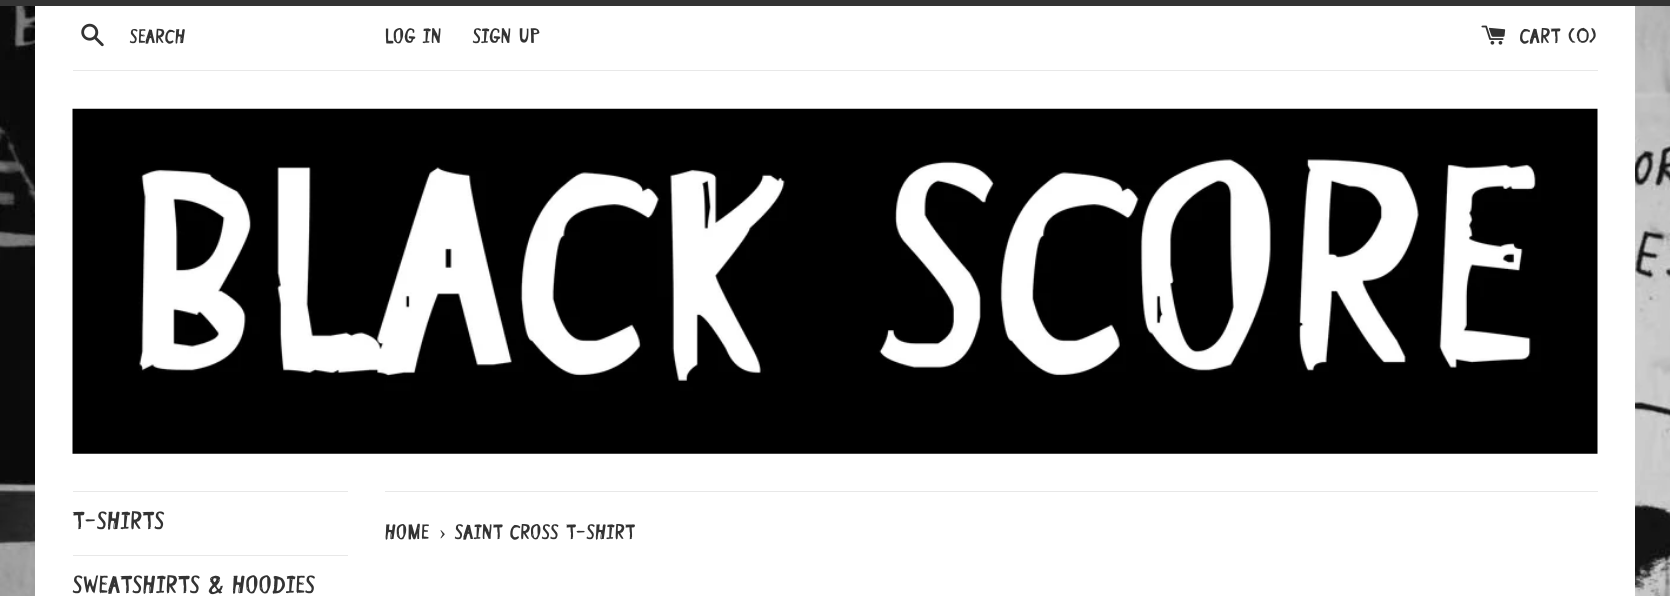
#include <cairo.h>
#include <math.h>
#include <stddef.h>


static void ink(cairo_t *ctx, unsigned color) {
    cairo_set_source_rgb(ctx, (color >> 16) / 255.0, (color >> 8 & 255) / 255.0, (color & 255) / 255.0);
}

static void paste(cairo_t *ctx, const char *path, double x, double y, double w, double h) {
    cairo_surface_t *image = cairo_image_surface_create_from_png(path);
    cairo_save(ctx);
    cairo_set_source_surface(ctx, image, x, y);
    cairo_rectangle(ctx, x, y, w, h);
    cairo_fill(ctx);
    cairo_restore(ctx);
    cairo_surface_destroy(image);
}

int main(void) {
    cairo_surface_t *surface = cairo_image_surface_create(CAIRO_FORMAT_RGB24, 1670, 596);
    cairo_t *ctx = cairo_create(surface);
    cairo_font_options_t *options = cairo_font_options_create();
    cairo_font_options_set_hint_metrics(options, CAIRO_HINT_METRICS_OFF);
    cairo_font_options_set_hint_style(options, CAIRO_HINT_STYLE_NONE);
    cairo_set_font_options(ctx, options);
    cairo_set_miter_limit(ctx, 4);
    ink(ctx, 0xFFFFFF);
    cairo_paint(ctx);
    paste(ctx, "media/1.png", 0, 6, 1670, 590);
    ink(ctx, 0x333333);
    cairo_rectangle(ctx, 0, 0, 1670, 6);
    cairo_fill(ctx);
    ink(ctx, 0xFFFFFF);
    cairo_rectangle(ctx, 35, 6, 1600, 590);
    cairo_fill(ctx);
    paste(ctx, "media/2.png", 81, 23, 23, 24);
    cairo_select_font_face(ctx, "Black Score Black", CAIRO_FONT_SLANT_NORMAL, CAIRO_FONT_WEIGHT_NORMAL);
    cairo_set_font_size(ctx, 16);
    ink(ctx, 0x333333);
    cairo_move_to(ctx, 130, 43);
    cairo_show_text(ctx, "SEARCH");
    cairo_set_font_size(ctx, 16.9);
    cairo_move_to(ctx, 385, 43);
    cairo_show_text(ctx, "LOG IN");
    cairo_move_to(ctx, 473, 43);
    cairo_show_text(ctx, "SIGN UP");
    paste(ctx, "media/3.png", 1481, 25, 25, 20);
    cairo_move_to(ctx, 1520, 43);
    cairo_show_text(ctx, "CART (0)");
    ink(ctx, 0xE8E8E8);
    cairo_rectangle(ctx, 73, 70, 1525, 1);
    cairo_fill(ctx);
    paste(ctx, "media/4.png", 72, 108, 1526, 346);
    cairo_rectangle(ctx, 73, 491, 275, 1);
    cairo_fill(ctx);
    cairo_rectangle(ctx, 73, 555, 275, 1);
    cairo_fill(ctx);
    cairo_set_font_size(ctx, 20);
    ink(ctx, 0x333333);
    cairo_move_to(ctx, 73, 529);
    cairo_show_text(ctx, "T-SHIRTS");
    cairo_move_to(ctx, 73, 593);
    cairo_show_text(ctx, "SWEATSHIRTS & HOODIES");
    ink(ctx, 0xE8E8E8);
    cairo_rectangle(ctx, 385, 491, 1213, 1);
    cairo_fill(ctx);
    cairo_set_font_size(ctx, 16.9);
    ink(ctx, 0x333333);
    cairo_move_to(ctx, 385, 539);
    cairo_show_text(ctx, "HOME");
    cairo_select_font_face(ctx, "Liberation Serif", CAIRO_FONT_SLANT_NORMAL, CAIRO_FONT_WEIGHT_NORMAL);
    cairo_set_font_size(ctx, 21);
    cairo_move_to(ctx, 439, 539);
    cairo_show_text(ctx, "›");
    cairo_select_font_face(ctx, "Black Score Black", CAIRO_FONT_SLANT_NORMAL, CAIRO_FONT_WEIGHT_NORMAL);
    cairo_set_font_size(ctx, 16.9);
    cairo_move_to(ctx, 455, 539);
    cairo_show_text(ctx, "SAINT CROSS T-SHIRT");
    cairo_surface_write_to_png(surface, "image.png");
    cairo_font_options_destroy(options);
    cairo_destroy(ctx);
    cairo_surface_destroy(surface);
    return 0;
}
